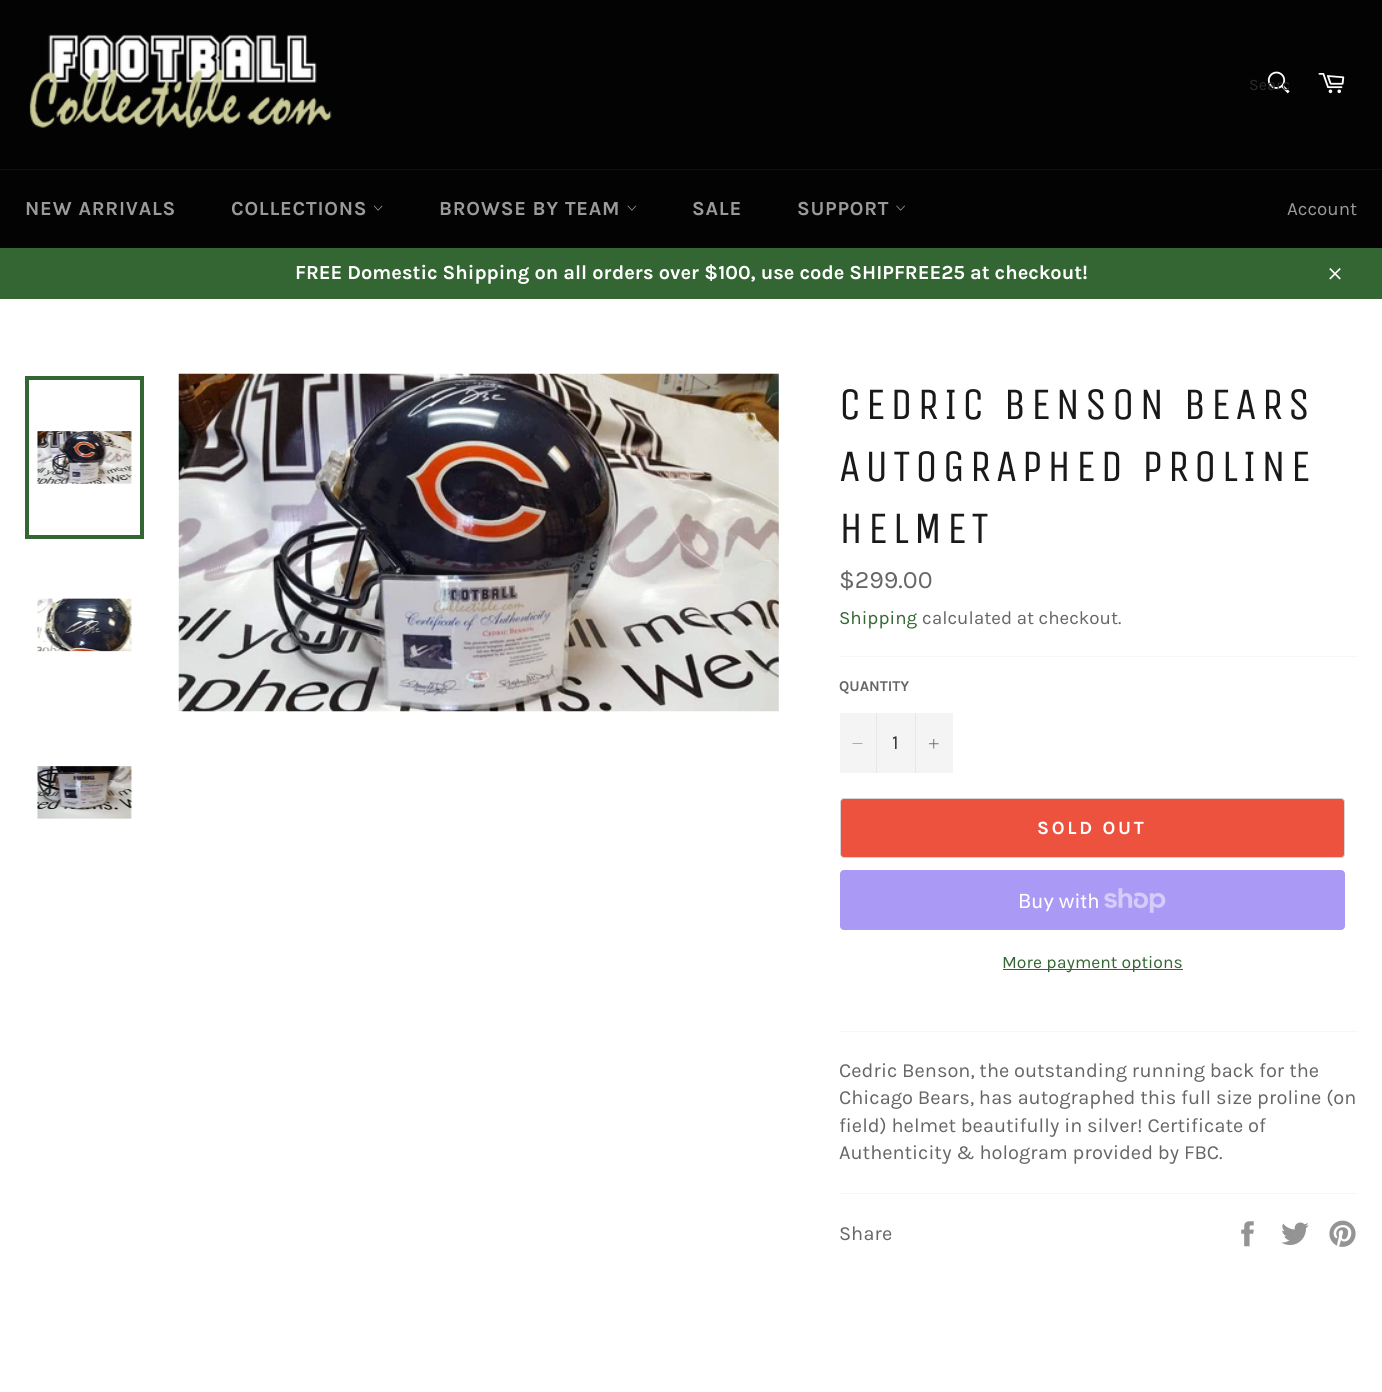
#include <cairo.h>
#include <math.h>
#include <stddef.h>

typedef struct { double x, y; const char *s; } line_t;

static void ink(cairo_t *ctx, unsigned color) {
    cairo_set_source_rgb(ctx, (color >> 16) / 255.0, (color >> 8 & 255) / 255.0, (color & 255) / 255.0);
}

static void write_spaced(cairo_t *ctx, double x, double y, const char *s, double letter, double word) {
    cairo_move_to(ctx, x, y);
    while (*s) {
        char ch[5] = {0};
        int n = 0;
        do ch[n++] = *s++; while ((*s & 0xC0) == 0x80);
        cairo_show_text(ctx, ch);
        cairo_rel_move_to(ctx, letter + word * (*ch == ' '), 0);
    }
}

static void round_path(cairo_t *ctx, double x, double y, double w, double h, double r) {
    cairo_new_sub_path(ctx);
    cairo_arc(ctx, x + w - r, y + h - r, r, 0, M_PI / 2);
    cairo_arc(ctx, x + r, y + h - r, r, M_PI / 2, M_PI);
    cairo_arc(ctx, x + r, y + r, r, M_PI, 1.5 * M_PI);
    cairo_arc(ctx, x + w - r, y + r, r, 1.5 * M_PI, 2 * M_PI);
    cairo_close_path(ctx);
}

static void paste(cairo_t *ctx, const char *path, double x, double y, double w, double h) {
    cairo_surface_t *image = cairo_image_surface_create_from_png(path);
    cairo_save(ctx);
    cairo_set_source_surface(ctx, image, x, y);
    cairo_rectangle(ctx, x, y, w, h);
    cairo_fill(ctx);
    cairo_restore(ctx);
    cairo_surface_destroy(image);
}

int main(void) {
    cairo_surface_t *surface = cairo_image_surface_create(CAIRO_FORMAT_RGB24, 1382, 1392);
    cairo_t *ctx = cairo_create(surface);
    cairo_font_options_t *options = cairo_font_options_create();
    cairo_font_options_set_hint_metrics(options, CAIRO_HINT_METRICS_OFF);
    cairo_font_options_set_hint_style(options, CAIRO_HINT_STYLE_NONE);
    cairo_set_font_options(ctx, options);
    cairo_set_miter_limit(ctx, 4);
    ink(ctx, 0x030303);
    cairo_paint(ctx);
    paste(ctx, "media/1.png", 29, 34, 303, 95);
    paste(ctx, "media/2.png", 1267, 71, 23, 23);
    cairo_save(ctx);
    cairo_rectangle(ctx, 1249, 75, 40, 19);
    cairo_clip(ctx);
    cairo_select_font_face(ctx, "Karla", CAIRO_FONT_SLANT_NORMAL, CAIRO_FONT_WEIGHT_NORMAL);
    cairo_set_font_size(ctx, 16);
    ink(ctx, 0x2A2A2A);
    cairo_move_to(ctx, 1249, 90);
    cairo_show_text(ctx, "Searc");
    cairo_restore(ctx);
    paste(ctx, "media/3.png", 1318, 73, 27, 21);
    ink(ctx, 0x101010);
    cairo_rectangle(ctx, 0, 169, 1382, 1);
    cairo_fill(ctx);
    cairo_select_font_face(ctx, "Karla", CAIRO_FONT_SLANT_NORMAL, CAIRO_FONT_WEIGHT_BOLD);
    cairo_set_font_size(ctx, 20);
    ink(ctx, 0x9A9A9A);
    write_spaced(ctx, 25, 215, "NEW ARRIVALS", 0.75, 0);
    write_spaced(ctx, 231, 215, "COLLECTIONS", 0.75, 0);
    paste(ctx, "media/4.png", 373, 205, 10, 6);
    write_spaced(ctx, 439, 215, "BROWSE BY TEAM", 0.75, 0);
    paste(ctx, "media/5.png", 627, 205, 10, 6);
    write_spaced(ctx, 692, 215, "SALE", 0.75, 0);
    write_spaced(ctx, 797, 215, "SUPPORT", 0.75, 0);
    paste(ctx, "media/6.png", 896, 205, 9, 6);
    cairo_select_font_face(ctx, "Karla", CAIRO_FONT_SLANT_NORMAL, CAIRO_FONT_WEIGHT_NORMAL);
    cairo_set_font_size(ctx, 18.75);
    cairo_move_to(ctx, 1287, 215);
    cairo_show_text(ctx, "Account");
    ink(ctx, 0x336633);
    cairo_rectangle(ctx, 0, 248, 1382, 51);
    cairo_fill(ctx);
    cairo_select_font_face(ctx, "Karla", CAIRO_FONT_SLANT_NORMAL, CAIRO_FONT_WEIGHT_BOLD);
    cairo_set_font_size(ctx, 20);
    ink(ctx, 0xFFFFFF);
    cairo_move_to(ctx, 295, 279);
    cairo_show_text(ctx, "FREE Domestic Shipping on all orders over $100, use code SHIPFREE25 at checkout!");
    paste(ctx, "media/7.png", 1329, 268, 12, 12);
    cairo_rectangle(ctx, 0, 299, 1382, 1093);
    cairo_fill(ctx);
    paste(ctx, "media/8.png", 37, 431, 95, 53);
    cairo_rectangle(ctx, 27, 378, 115, 159);
    ink(ctx, 0x336633);
    cairo_set_line_width(ctx, 4);
    cairo_stroke(ctx);
    paste(ctx, "media/9.png", 37, 598, 95, 54);
    paste(ctx, "media/10.png", 37, 766, 95, 53);
    paste(ctx, "media/11.png", 178, 373, 601, 339);
    cairo_select_font_face(ctx, "Unica One", CAIRO_FONT_SLANT_NORMAL, CAIRO_FONT_WEIGHT_NORMAL);
    cairo_set_font_size(ctx, 45);
    ink(ctx, 0x191919);
    {
        static const line_t items[] = {
            {839, 419, "CEDRIC BENSON BEARS"},
            {839, 481, "AUTOGRAPHED PROLINE"},
            {839, 543, "HELMET"},
        };
        for (size_t i = 0; i < sizeof items / sizeof *items; i++) {
            write_spaced(ctx, items[i].x, items[i].y, items[i].s, 4.5, 0);
        }
    }
    cairo_select_font_face(ctx, "Karla", CAIRO_FONT_SLANT_NORMAL, CAIRO_FONT_WEIGHT_NORMAL);
    cairo_set_font_size(ctx, 25);
    ink(ctx, 0x666666);
    cairo_move_to(ctx, 839, 588);
    cairo_show_text(ctx, "$299.00");
    cairo_set_font_size(ctx, 18.75);
    ink(ctx, 0x336633);
    cairo_move_to(ctx, 839, 624);
    cairo_show_text(ctx, "Shipping");
    ink(ctx, 0x666666);
    cairo_move_to(ctx, 922, 624);
    cairo_show_text(ctx, "calculated at checkout.");
    ink(ctx, 0xF7F7F7);
    cairo_rectangle(ctx, 840, 656, 518, 1);
    cairo_fill(ctx);
    cairo_select_font_face(ctx, "Karla", CAIRO_FONT_SLANT_NORMAL, CAIRO_FONT_WEIGHT_BOLD);
    cairo_set_font_size(ctx, 15);
    ink(ctx, 0x666666);
    cairo_move_to(ctx, 839, 691);
    cairo_show_text(ctx, "QUANTITY");
    ink(ctx, 0xF4F4F4);
    cairo_rectangle(ctx, 840, 713, 113, 60);
    cairo_fill(ctx);
    ink(ctx, 0xE7E7E7);
    cairo_rectangle(ctx, 876, 713, 1, 60);
    cairo_fill(ctx);
    ink(ctx, 0x666666);
    cairo_set_fill_rule(ctx, CAIRO_FILL_RULE_EVEN_ODD);
    cairo_new_path(ctx);
    cairo_move_to(ctx, 862.5, 743.5);
    cairo_line_to(ctx, 862.5, 744);
    cairo_line_to(ctx, 852.5, 744);
    cairo_line_to(ctx, 852.5, 743.5);
    cairo_close_path(ctx);
    cairo_fill(ctx);
    cairo_select_font_face(ctx, "Karla", CAIRO_FONT_SLANT_NORMAL, CAIRO_FONT_WEIGHT_NORMAL);
    cairo_set_font_size(ctx, 20);
    ink(ctx, 0x333333);
    cairo_move_to(ctx, 892, 749);
    cairo_show_text(ctx, "1");
    ink(ctx, 0xE7E7E7);
    cairo_rectangle(ctx, 915, 713, 1, 60);
    cairo_fill(ctx);
    paste(ctx, "media/12.png", 929, 739, 10, 10);
    ink(ctx, 0xEC523E);
    round_path(ctx, 840.5, 798.5, 504, 59, 3.5);
    cairo_fill_preserve(ctx);
    ink(ctx, 0xD5D5D5);
    cairo_set_line_width(ctx, 1);
    cairo_stroke(ctx);
    cairo_select_font_face(ctx, "Karla", CAIRO_FONT_SLANT_NORMAL, CAIRO_FONT_WEIGHT_BOLD);
    cairo_set_font_size(ctx, 18.75);
    ink(ctx, 0xFFFFFF);
    write_spaced(ctx, 1037, 834, "SOLD OUT", 2.75, 0);
    ink(ctx, 0xAA99F5);
    round_path(ctx, 840, 870, 505, 60, 4);
    cairo_fill(ctx);
    cairo_select_font_face(ctx, "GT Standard", CAIRO_FONT_SLANT_NORMAL, CAIRO_FONT_WEIGHT_NORMAL);
    cairo_set_font_size(ctx, 20);
    ink(ctx, 0xFFFFFF);
    cairo_move_to(ctx, 1018, 908);
    cairo_show_text(ctx, "Buy with");
    paste(ctx, "media/13.png", 1104, 888, 62, 25);
    ink(ctx, 0x336633);
    cairo_rectangle(ctx, 1003, 969, 180, 1);
    cairo_fill(ctx);
    cairo_select_font_face(ctx, "Karla", CAIRO_FONT_SLANT_NORMAL, CAIRO_FONT_WEIGHT_NORMAL);
    cairo_set_font_size(ctx, 17.5);
    cairo_move_to(ctx, 1002, 968);
    cairo_show_text(ctx, "More payment options");
    ink(ctx, 0xF7F7F7);
    cairo_rectangle(ctx, 840, 1031, 518, 1);
    cairo_fill(ctx);
    cairo_set_font_size(ctx, 20);
    ink(ctx, 0x666666);
    {
        static const line_t items[] = {
            {839, 1077, "Cedric Benson, the outstanding running back for the"},
            {839, 1104, "Chicago Bears, has autographed this full size proline (on"},
            {839, 1132, "field) helmet beautifully in silver! Certificate of"},
            {839, 1159, "Authenticity & hologram provided by FBC."},
        };
        for (size_t i = 0; i < sizeof items / sizeof *items; i++) {
            cairo_move_to(ctx, items[i].x, items[i].y);
            cairo_show_text(ctx, items[i].s);
        }
    }
    ink(ctx, 0xF7F7F7);
    cairo_rectangle(ctx, 840, 1193, 518, 1);
    cairo_fill(ctx);
    ink(ctx, 0x666666);
    cairo_move_to(ctx, 839, 1240);
    cairo_show_text(ctx, "Share");
    paste(ctx, "media/14.png", 1241, 1221, 13, 26);
    paste(ctx, "media/15.png", 1281, 1222, 28, 23);
    paste(ctx, "media/16.png", 1329, 1220, 27, 27);
    cairo_surface_write_to_png(surface, "image.png");
    cairo_font_options_destroy(options);
    cairo_destroy(ctx);
    cairo_surface_destroy(surface);
    return 0;
}
